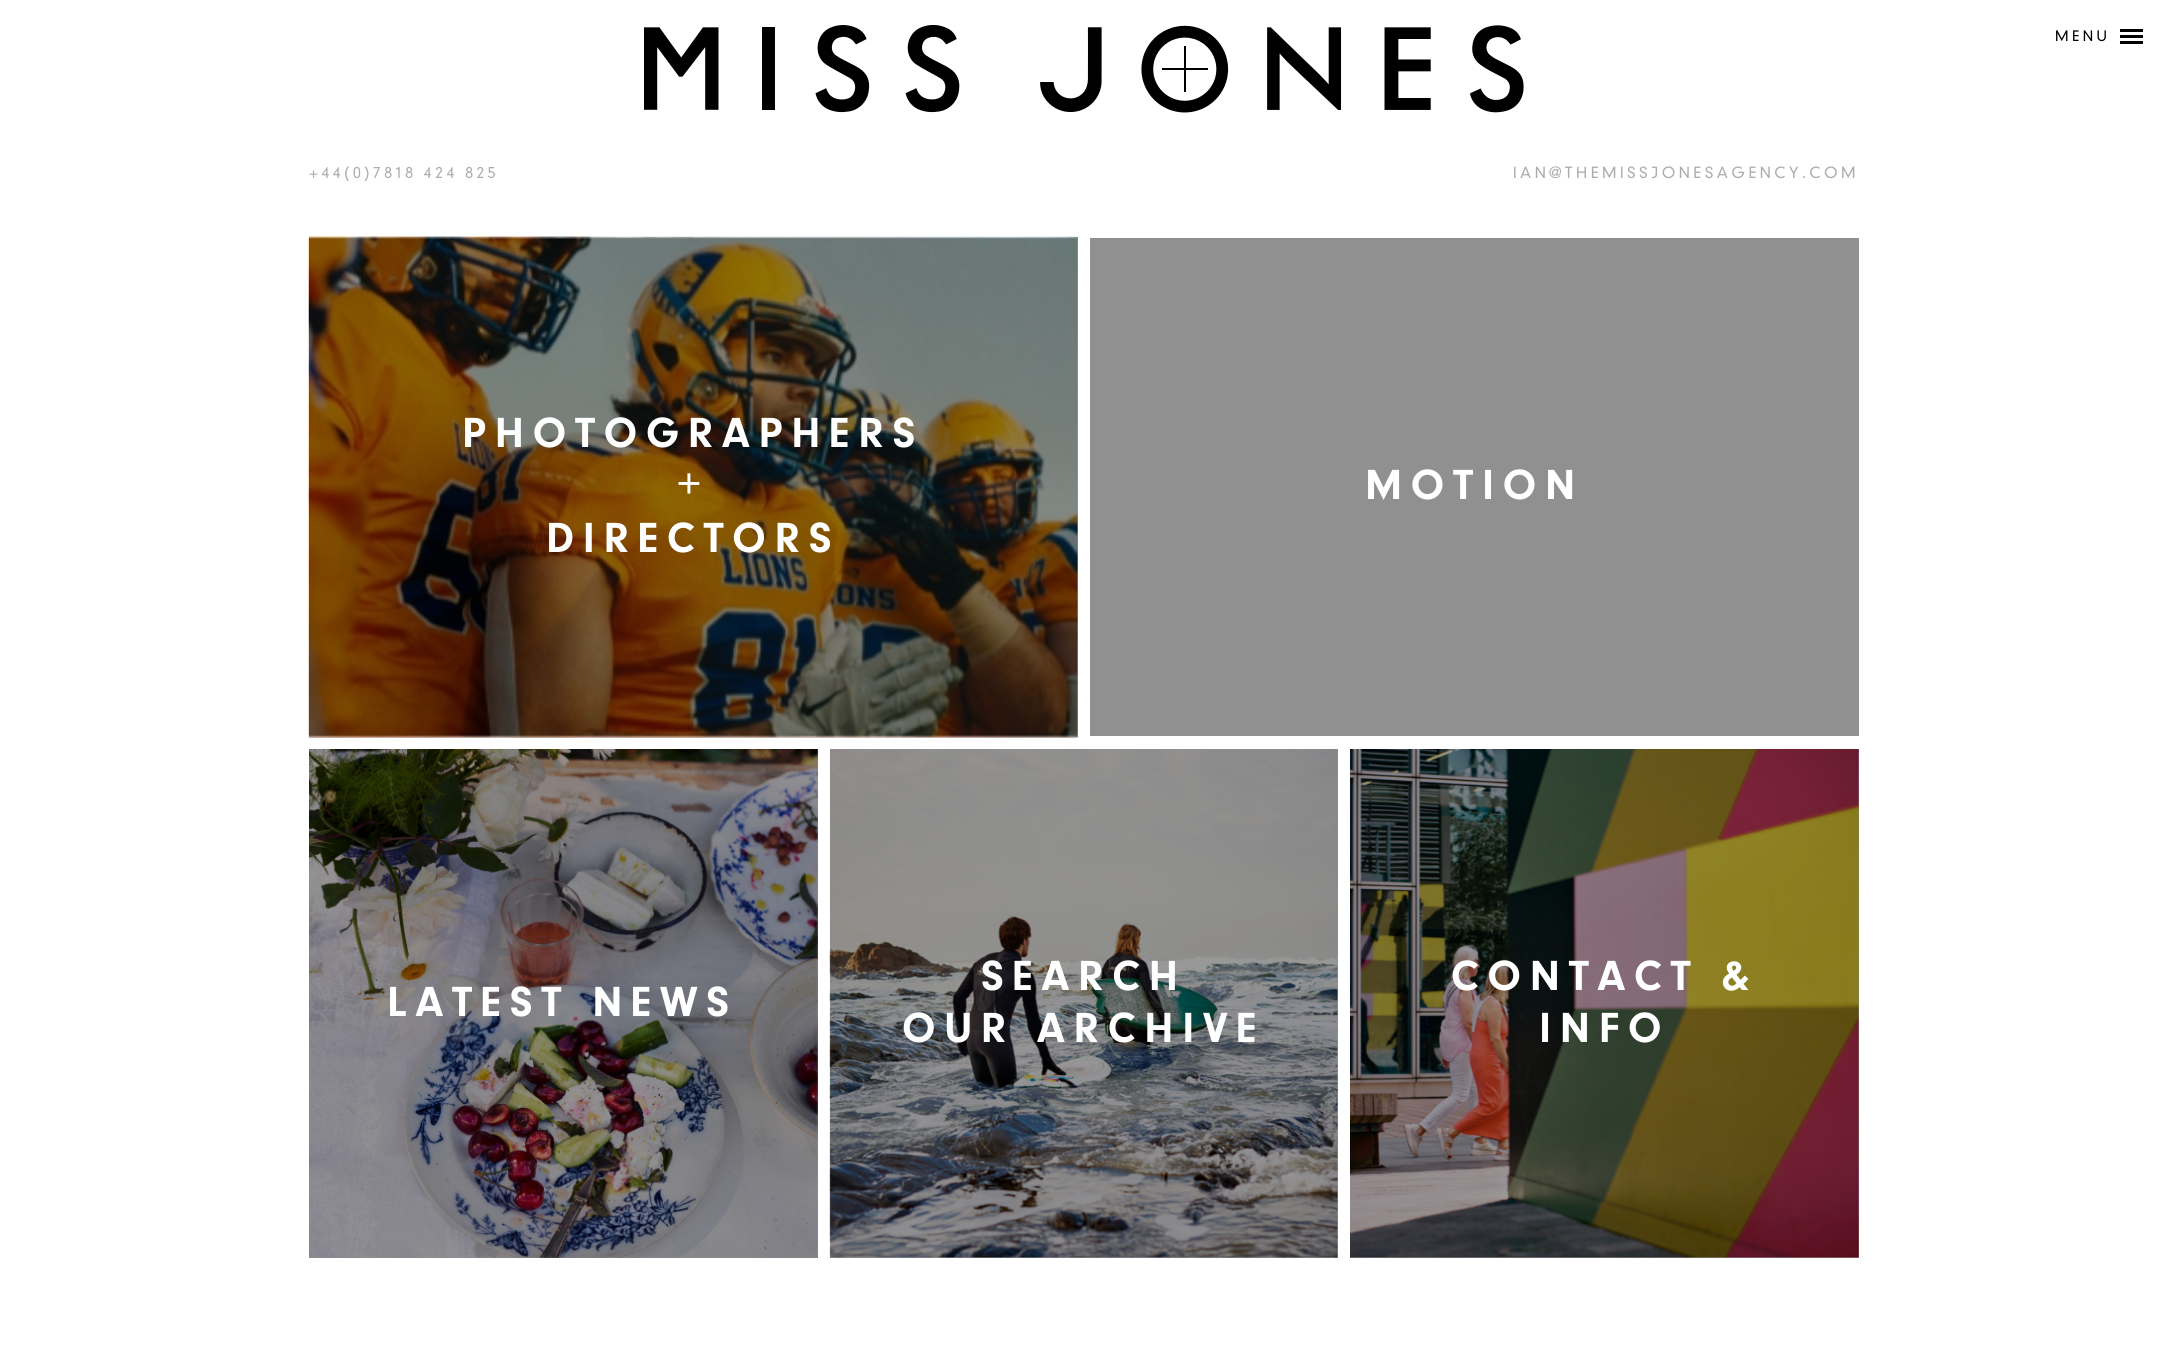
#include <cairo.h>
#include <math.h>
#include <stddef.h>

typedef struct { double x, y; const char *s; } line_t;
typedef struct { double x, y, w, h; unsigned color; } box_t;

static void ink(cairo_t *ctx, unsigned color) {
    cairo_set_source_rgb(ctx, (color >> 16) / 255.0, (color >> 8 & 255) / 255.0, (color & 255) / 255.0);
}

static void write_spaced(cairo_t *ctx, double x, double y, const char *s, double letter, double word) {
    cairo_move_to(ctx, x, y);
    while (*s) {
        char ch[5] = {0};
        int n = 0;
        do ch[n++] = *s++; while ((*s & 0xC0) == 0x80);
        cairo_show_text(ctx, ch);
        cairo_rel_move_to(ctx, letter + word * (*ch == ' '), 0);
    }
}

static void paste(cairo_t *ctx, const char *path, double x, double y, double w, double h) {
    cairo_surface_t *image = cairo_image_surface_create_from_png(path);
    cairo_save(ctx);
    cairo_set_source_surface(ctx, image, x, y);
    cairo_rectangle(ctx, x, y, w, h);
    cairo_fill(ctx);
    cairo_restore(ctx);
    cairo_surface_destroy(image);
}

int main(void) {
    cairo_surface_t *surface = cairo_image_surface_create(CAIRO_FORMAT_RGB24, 2167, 1360);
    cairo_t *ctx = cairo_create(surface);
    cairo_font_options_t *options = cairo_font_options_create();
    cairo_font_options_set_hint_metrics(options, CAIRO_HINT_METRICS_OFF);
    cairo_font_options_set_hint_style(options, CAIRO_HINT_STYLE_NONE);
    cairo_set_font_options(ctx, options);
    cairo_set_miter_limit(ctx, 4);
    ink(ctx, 0xFFFFFF);
    cairo_paint(ctx);
    paste(ctx, "media/1.png", 644, 25, 880, 88);
    cairo_select_font_face(ctx, "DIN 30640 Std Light", CAIRO_FONT_SLANT_NORMAL, CAIRO_FONT_WEIGHT_NORMAL);
    cairo_set_font_size(ctx, 14);
    ink(ctx, 0x000000);
    write_spaced(ctx, 2055, 41, "MENU", 3.5, 0);
    {
        static const box_t items[] = {
            {2120, 35, 23, 3, 0x000000},
            {2120, 29, 23, 3, 0x000000},
            {2120, 41, 23, 3, 0x000000},
        };
        for (size_t i = 0; i < sizeof items / sizeof *items; i++) {
            ink(ctx, items[i].color);
            cairo_rectangle(ctx, items[i].x, items[i].y, items[i].w, items[i].h);
            cairo_fill(ctx);
        }
    }
    cairo_set_font_size(ctx, 15);
    ink(ctx, 0xADADAD);
    write_spaced(ctx, 309, 178, "+44(0)7818 424 825", 3.5, 0);
    write_spaced(ctx, 1513, 178, "IAN@THEMISSJONESAGENCY.COM", 3.5, 0);
    paste(ctx, "media/3.png", 309, 237, 769, 500);
    paste(ctx, "media/4.png", 309, 237, 769, 501);
    paste(ctx, "media/5.png", 309, 237, 769, 501);
    paste(ctx, "media/6.png", 309, 237, 769, 501);
    paste(ctx, "media/7.png", 309, 237, 769, 501);
    paste(ctx, "media/8.png", 309, 237, 769, 501);
    paste(ctx, "media/9.png", 309, 237, 769, 500);
    paste(ctx, "media/10.png", 309, 237, 769, 501);
    paste(ctx, "media/11.png", 309, 237, 769, 501);
    paste(ctx, "media/12.png", 309, 237, 769, 501);
    paste(ctx, "media/13.png", 309, 237, 769, 500);
    paste(ctx, "media/14.png", 309, 237, 769, 501);
    paste(ctx, "media/15.png", 309, 237, 769, 501);
    paste(ctx, "media/16.png", 309, 237, 769, 501);
    paste(ctx, "media/17.png", 309, 237, 769, 501);
    paste(ctx, "media/18.png", 309, 237, 769, 501);
    paste(ctx, "media/19.png", 309, 237, 769, 500);
    paste(ctx, "media/20.png", 309, 237, 769, 501);
    paste(ctx, "media/21.png", 309, 237, 769, 500);
    paste(ctx, "media/22.png", 309, 237, 769, 501);
    paste(ctx, "media/23.png", 309, 237, 769, 500);
    paste(ctx, "media/24.png", 309, 237, 769, 500);
    paste(ctx, "media/25.png", 309, 237, 769, 501);
    paste(ctx, "media/26.png", 309, 237, 769, 501);
    paste(ctx, "media/27.png", 309, 237, 769, 501);
    paste(ctx, "media/28.png", 309, 237, 769, 500);
    paste(ctx, "media/29.png", 309, 237, 769, 500);
    ink(ctx, 0x999999);
    cairo_rectangle(ctx, 309, 238, 769, 498);
    cairo_fill(ctx);
    paste(ctx, "media/2.png", 308, 236, 770, 502);
    cairo_select_font_face(ctx, "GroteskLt", CAIRO_FONT_SLANT_NORMAL, CAIRO_FONT_WEIGHT_BOLD);
    cairo_set_font_size(ctx, 43.75);
    ink(ctx, 0xFFFFFF);
    {
        static const line_t items[] = {
            {462, 447, "PHOTOGRAPHERS"},
            {678, 499, "+"},
            {546, 552, "DIRECTORS"},
        };
        for (size_t i = 0; i < sizeof items / sizeof *items; i++) {
            write_spaced(ctx, items[i].x, items[i].y, items[i].s, 8.75, 0);
        }
    }
    ink(ctx, 0x909090);
    cairo_rectangle(ctx, 1090, 238, 769, 498);
    cairo_fill(ctx);
    ink(ctx, 0xFFFFFF);
    write_spaced(ctx, 1365, 499, "MOTION", 8.75, 0);
    ink(ctx, 0x919191);
    cairo_rectangle(ctx, 309, 749, 509, 509);
    cairo_fill(ctx);
    paste(ctx, "media/30.png", 309, 749, 509, 509);
    ink(ctx, 0xFFFFFF);
    write_spaced(ctx, 387, 1016, "LATEST NEWS", 8.75, 0);
    ink(ctx, 0x919191);
    cairo_rectangle(ctx, 830, 749, 508, 509);
    cairo_fill(ctx);
    paste(ctx, "media/31.png", 829, 749, 509, 509);
    ink(ctx, 0xFFFFFF);
    write_spaced(ctx, 981, 990, "SEARCH", 8.75, 0);
    write_spaced(ctx, 902, 1042, "OUR ARCHIVE", 8.75, 0);
    ink(ctx, 0x919191);
    cairo_rectangle(ctx, 1350, 749, 509, 509);
    cairo_fill(ctx);
    paste(ctx, "media/32.png", 1350, 749, 509, 509);
    ink(ctx, 0xFFFFFF);
    write_spaced(ctx, 1451, 990, "CONTACT &", 8.75, 0);
    write_spaced(ctx, 1539, 1042, "INFO", 8.75, 0);
    cairo_surface_write_to_png(surface, "image.png");
    cairo_font_options_destroy(options);
    cairo_destroy(ctx);
    cairo_surface_destroy(surface);
    return 0;
}
